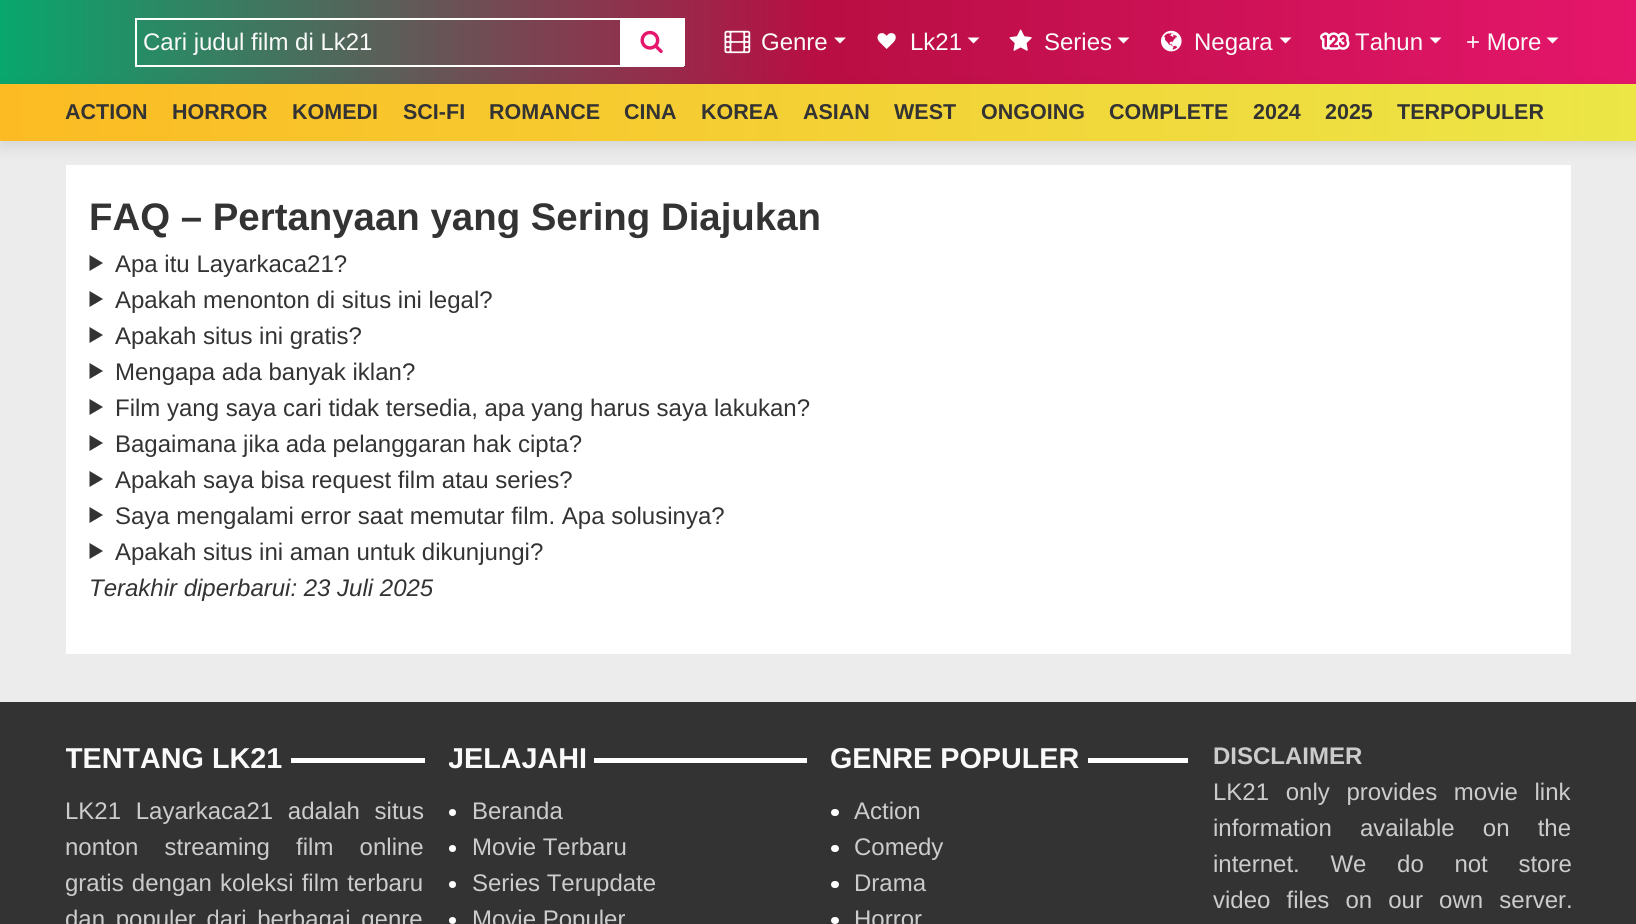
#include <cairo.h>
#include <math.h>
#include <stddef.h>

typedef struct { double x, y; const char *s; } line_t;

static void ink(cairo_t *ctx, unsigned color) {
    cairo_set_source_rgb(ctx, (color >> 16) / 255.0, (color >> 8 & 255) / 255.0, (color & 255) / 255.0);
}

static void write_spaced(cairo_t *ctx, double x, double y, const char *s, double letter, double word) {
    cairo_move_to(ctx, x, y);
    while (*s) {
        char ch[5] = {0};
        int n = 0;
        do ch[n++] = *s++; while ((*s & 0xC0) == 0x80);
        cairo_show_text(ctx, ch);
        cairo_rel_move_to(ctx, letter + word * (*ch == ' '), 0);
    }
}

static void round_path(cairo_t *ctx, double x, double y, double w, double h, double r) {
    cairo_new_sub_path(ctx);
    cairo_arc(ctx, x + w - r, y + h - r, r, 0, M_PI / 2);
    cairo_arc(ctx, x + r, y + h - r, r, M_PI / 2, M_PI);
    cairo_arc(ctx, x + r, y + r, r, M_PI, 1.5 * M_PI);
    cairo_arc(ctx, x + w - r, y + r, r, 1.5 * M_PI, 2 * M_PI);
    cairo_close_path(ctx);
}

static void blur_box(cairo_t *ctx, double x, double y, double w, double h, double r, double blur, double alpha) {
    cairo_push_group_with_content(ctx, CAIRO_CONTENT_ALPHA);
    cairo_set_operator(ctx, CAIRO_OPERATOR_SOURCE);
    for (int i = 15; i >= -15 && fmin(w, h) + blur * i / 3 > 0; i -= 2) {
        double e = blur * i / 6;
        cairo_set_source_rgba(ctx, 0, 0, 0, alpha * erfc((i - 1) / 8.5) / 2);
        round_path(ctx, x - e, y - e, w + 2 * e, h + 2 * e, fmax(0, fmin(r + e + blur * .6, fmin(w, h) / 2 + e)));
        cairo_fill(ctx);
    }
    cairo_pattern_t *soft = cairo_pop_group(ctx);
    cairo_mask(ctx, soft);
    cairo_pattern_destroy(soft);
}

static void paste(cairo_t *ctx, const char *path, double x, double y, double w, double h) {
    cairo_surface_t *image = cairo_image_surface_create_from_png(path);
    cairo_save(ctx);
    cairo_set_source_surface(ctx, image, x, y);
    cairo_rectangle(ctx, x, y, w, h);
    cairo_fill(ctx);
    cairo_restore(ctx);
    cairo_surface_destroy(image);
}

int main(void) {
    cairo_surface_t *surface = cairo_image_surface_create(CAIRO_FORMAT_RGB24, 1636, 924);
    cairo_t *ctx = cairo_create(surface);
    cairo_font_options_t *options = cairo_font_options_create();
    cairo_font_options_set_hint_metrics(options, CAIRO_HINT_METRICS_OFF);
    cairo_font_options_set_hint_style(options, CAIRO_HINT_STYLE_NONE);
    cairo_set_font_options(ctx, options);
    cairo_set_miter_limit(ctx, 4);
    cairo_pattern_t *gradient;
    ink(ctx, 0xECECEC);
    cairo_paint(ctx);
    gradient = cairo_pattern_create_linear(0, 42, 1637, 42);
    cairo_pattern_add_color_stop_rgba(gradient, 0, 0.031, 0.655, 0.427, 1);
    cairo_pattern_add_color_stop_rgba(gradient, 0.5, 0.722, 0.055, 0.263, 1);
    cairo_pattern_add_color_stop_rgba(gradient, 1, 0.898, 0.086, 0.42, 1);
    cairo_set_source(ctx, gradient);
    cairo_pattern_destroy(gradient);
    cairo_rectangle(ctx, 0, 0, 1636, 84);
    cairo_fill(ctx);
    ink(ctx, 0xFFFFFF);
    cairo_rectangle(ctx, 620, 18, 63, 47);
    cairo_fill(ctx);
    cairo_rectangle(ctx, 683, 18, 2, 48);
    cairo_fill(ctx);
    ink(ctx, 0x000000);
    blur_box(ctx, 0, 90, 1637, 57, 0, 7.5, 0.1);
    ink(ctx, 0xFFFFFF);
    cairo_rectangle(ctx, 135, 65, 549, 2);
    cairo_fill(ctx);
    paste(ctx, "media/1.png", 640, 30, 23, 24);
    cairo_rectangle(ctx, 135, 18, 485, 2);
    cairo_fill(ctx);
    cairo_rectangle(ctx, 135, 18, 2, 48);
    cairo_fill(ctx);
    cairo_select_font_face(ctx, "Liberation Sans", CAIRO_FONT_SLANT_NORMAL, CAIRO_FONT_WEIGHT_NORMAL);
    cairo_set_font_size(ctx, 24);
    ink(ctx, 0xFAFAFA);
    cairo_move_to(ctx, 143, 50);
    cairo_show_text(ctx, "Cari judul film di Lk21");
    paste(ctx, "media/2.png", 724, 30, 27, 24);
    cairo_move_to(ctx, 761, 50);
    cairo_show_text(ctx, "Genre");
    ink(ctx, 0xFFFFFF);
    cairo_new_path(ctx);
    cairo_move_to(ctx, 834, 37.5);
    cairo_line_to(ctx, 846, 37.5);
    cairo_line_to(ctx, 840, 43.5);
    cairo_close_path(ctx);
    cairo_fill(ctx);
    paste(ctx, "media/3.png", 877, 33, 19, 16);
    ink(ctx, 0xFAFAFA);
    cairo_move_to(ctx, 910, 50);
    cairo_show_text(ctx, "Lk21");
    ink(ctx, 0xFFFFFF);
    cairo_new_path(ctx);
    cairo_move_to(ctx, 967.5, 37.5);
    cairo_line_to(ctx, 979.5, 37.5);
    cairo_line_to(ctx, 973.5, 43.5);
    cairo_close_path(ctx);
    cairo_fill(ctx);
    paste(ctx, "media/4.png", 1009, 29, 23, 22);
    ink(ctx, 0xFAFAFA);
    cairo_move_to(ctx, 1044, 50);
    cairo_show_text(ctx, "Series");
    ink(ctx, 0xFFFFFF);
    cairo_new_path(ctx);
    cairo_move_to(ctx, 1117.5, 37.5);
    cairo_line_to(ctx, 1129.5, 37.5);
    cairo_line_to(ctx, 1123.5, 43.5);
    cairo_close_path(ctx);
    cairo_fill(ctx);
    paste(ctx, "media/5.png", 1161, 30, 21, 22);
    ink(ctx, 0xFAFAFA);
    cairo_move_to(ctx, 1194, 50);
    cairo_show_text(ctx, "Negara");
    ink(ctx, 0xFFFFFF);
    cairo_new_path(ctx);
    cairo_move_to(ctx, 1279.5, 37.5);
    cairo_line_to(ctx, 1291.5, 37.5);
    cairo_line_to(ctx, 1285.5, 43.5);
    cairo_close_path(ctx);
    cairo_fill(ctx);
    paste(ctx, "media/6.png", 1320, 32, 30, 18);
    ink(ctx, 0xFAFAFA);
    cairo_move_to(ctx, 1355, 50);
    cairo_show_text(ctx, "Tahun");
    ink(ctx, 0xFFFFFF);
    cairo_new_path(ctx);
    cairo_move_to(ctx, 1429.5, 37.5);
    cairo_line_to(ctx, 1441.5, 37.5);
    cairo_line_to(ctx, 1435.5, 43.5);
    cairo_close_path(ctx);
    cairo_fill(ctx);
    ink(ctx, 0xFAFAFA);
    cairo_move_to(ctx, 1466, 50);
    cairo_show_text(ctx, "+ More");
    ink(ctx, 0xFFFFFF);
    cairo_new_path(ctx);
    cairo_move_to(ctx, 1546.5, 37.5);
    cairo_line_to(ctx, 1558.5, 37.5);
    cairo_line_to(ctx, 1552.5, 43.5);
    cairo_close_path(ctx);
    cairo_fill(ctx);
    gradient = cairo_pattern_create_linear(0, 113, 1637, 112);
    cairo_pattern_add_color_stop_rgba(gradient, 0, 0.988, 0.733, 0.137, 1);
    cairo_pattern_add_color_stop_rgba(gradient, 1, 0.925, 0.902, 0.278, 1);
    cairo_set_source(ctx, gradient);
    cairo_pattern_destroy(gradient);
    cairo_rectangle(ctx, 0, 84, 1636, 57);
    cairo_fill(ctx);
    cairo_select_font_face(ctx, "Liberation Sans", CAIRO_FONT_SLANT_NORMAL, CAIRO_FONT_WEIGHT_BOLD);
    cairo_set_font_size(ctx, 21.5);
    ink(ctx, 0x333333);
    {
        static const line_t items[] = {
            {65, 119, "ACTION"},
            {172, 119, "HORROR"},
            {292, 119, "KOMEDI"},
            {403, 119, "SCI-FI"},
            {489, 119, "ROMANCE"},
            {624, 119, "CINA"},
            {701, 119, "KOREA"},
            {803, 119, "ASIAN"},
            {894, 119, "WEST"},
            {981, 119, "ONGOING"},
            {1109, 119, "COMPLETE"},
            {1253, 119, "2024"},
            {1325, 119, "2025"},
            {1397, 119, "TERPOPULER"},
        };
        for (size_t i = 0; i < sizeof items / sizeof *items; i++) {
            cairo_move_to(ctx, items[i].x, items[i].y);
            cairo_show_text(ctx, items[i].s);
        }
    }
    ink(ctx, 0xFFFFFF);
    cairo_rectangle(ctx, 66, 165, 1505, 489);
    cairo_fill(ctx);
    cairo_set_font_size(ctx, 38.4);
    ink(ctx, 0x333333);
    cairo_move_to(ctx, 89, 230);
    cairo_show_text(ctx, "FAQ – Pertanyaan yang Sering Diajukan");
    cairo_new_path(ctx);
    cairo_move_to(ctx, 89.5, 255);
    cairo_line_to(ctx, 103, 263);
    cairo_line_to(ctx, 89.5, 271);
    cairo_close_path(ctx);
    cairo_fill(ctx);
    cairo_select_font_face(ctx, "Liberation Sans", CAIRO_FONT_SLANT_NORMAL, CAIRO_FONT_WEIGHT_NORMAL);
    cairo_set_font_size(ctx, 24);
    cairo_move_to(ctx, 115, 272);
    cairo_show_text(ctx, "Apa itu Layarkaca21?");
    cairo_new_path(ctx);
    cairo_move_to(ctx, 89.5, 291);
    cairo_line_to(ctx, 103, 299);
    cairo_line_to(ctx, 89.5, 307);
    cairo_close_path(ctx);
    cairo_fill(ctx);
    cairo_move_to(ctx, 115, 308);
    cairo_show_text(ctx, "Apakah menonton di situs ini legal?");
    cairo_new_path(ctx);
    cairo_move_to(ctx, 89.5, 327);
    cairo_line_to(ctx, 103, 335);
    cairo_line_to(ctx, 89.5, 343);
    cairo_close_path(ctx);
    cairo_fill(ctx);
    cairo_move_to(ctx, 115, 344);
    cairo_show_text(ctx, "Apakah situs ini gratis?");
    cairo_new_path(ctx);
    cairo_move_to(ctx, 89.5, 363);
    cairo_line_to(ctx, 103, 371);
    cairo_line_to(ctx, 89.5, 379);
    cairo_close_path(ctx);
    cairo_fill(ctx);
    cairo_move_to(ctx, 115, 380);
    cairo_show_text(ctx, "Mengapa ada banyak iklan?");
    cairo_new_path(ctx);
    cairo_move_to(ctx, 89.5, 399);
    cairo_line_to(ctx, 103, 407);
    cairo_line_to(ctx, 89.5, 415);
    cairo_close_path(ctx);
    cairo_fill(ctx);
    cairo_move_to(ctx, 115, 416);
    cairo_show_text(ctx, "Film yang saya cari tidak tersedia, apa yang harus saya lakukan?");
    cairo_new_path(ctx);
    cairo_move_to(ctx, 89.5, 435);
    cairo_line_to(ctx, 103, 443);
    cairo_line_to(ctx, 89.5, 451);
    cairo_close_path(ctx);
    cairo_fill(ctx);
    cairo_move_to(ctx, 115, 452);
    cairo_show_text(ctx, "Bagaimana jika ada pelanggaran hak cipta?");
    cairo_new_path(ctx);
    cairo_move_to(ctx, 89.5, 471);
    cairo_line_to(ctx, 103, 479);
    cairo_line_to(ctx, 89.5, 487);
    cairo_close_path(ctx);
    cairo_fill(ctx);
    cairo_move_to(ctx, 115, 488);
    cairo_show_text(ctx, "Apakah saya bisa request film atau series?");
    cairo_new_path(ctx);
    cairo_move_to(ctx, 89.5, 507);
    cairo_line_to(ctx, 103, 515);
    cairo_line_to(ctx, 89.5, 523);
    cairo_close_path(ctx);
    cairo_fill(ctx);
    cairo_move_to(ctx, 115, 524);
    cairo_show_text(ctx, "Saya mengalami error saat memutar film. Apa solusinya?");
    cairo_new_path(ctx);
    cairo_move_to(ctx, 89.5, 543);
    cairo_line_to(ctx, 103, 551);
    cairo_line_to(ctx, 89.5, 559);
    cairo_close_path(ctx);
    cairo_fill(ctx);
    cairo_move_to(ctx, 115, 560);
    cairo_show_text(ctx, "Apakah situs ini aman untuk dikunjungi?");
    cairo_select_font_face(ctx, "Liberation Sans", CAIRO_FONT_SLANT_ITALIC, CAIRO_FONT_WEIGHT_NORMAL);
    cairo_move_to(ctx, 89, 596);
    cairo_show_text(ctx, "Terakhir diperbarui: 23 Juli 2025");
    cairo_rectangle(ctx, 0, 702, 1636, 222);
    cairo_fill(ctx);
    cairo_save(ctx);
    cairo_rectangle(ctx, 66, 738, 359, 44);
    cairo_clip(ctx);
    cairo_select_font_face(ctx, "Liberation Sans", CAIRO_FONT_SLANT_NORMAL, CAIRO_FONT_WEIGHT_BOLD);
    cairo_set_font_size(ctx, 28.75);
    ink(ctx, 0xFAFAFA);
    cairo_move_to(ctx, 65, 768);
    cairo_show_text(ctx, "TENTANG LK21");
    cairo_restore(ctx);
    ink(ctx, 0xFFFFFF);
    cairo_rectangle(ctx, 291, 758, 134, 5);
    cairo_fill(ctx);
    cairo_select_font_face(ctx, "Liberation Sans", CAIRO_FONT_SLANT_NORMAL, CAIRO_FONT_WEIGHT_NORMAL);
    ink(ctx, 0xCCCCCC);
    write_spaced(ctx, 65, 819, "LK21 Layarkaca21 adalah situs", 0, 8);
    write_spaced(ctx, 65, 855, "nonton streaming film online", 0, 19.5);
    write_spaced(ctx, 65, 891, "gratis dengan koleksi film terbaru", 0, 1.5);
    write_spaced(ctx, 65, 927, "dan populer dari berbagai genre", 0, 4);
    cairo_save(ctx);
    cairo_rectangle(ctx, 449, 738, 358, 44);
    cairo_clip(ctx);
    cairo_select_font_face(ctx, "Liberation Sans", CAIRO_FONT_SLANT_NORMAL, CAIRO_FONT_WEIGHT_BOLD);
    cairo_set_font_size(ctx, 28.75);
    ink(ctx, 0xFAFAFA);
    cairo_move_to(ctx, 448, 768);
    cairo_show_text(ctx, "JELAJAHI");
    cairo_restore(ctx);
    ink(ctx, 0xFFFFFF);
    cairo_rectangle(ctx, 594, 758, 213, 5);
    cairo_fill(ctx);
    cairo_arc(ctx, 452.5, 812.5, 3.5, 0, 2 * M_PI);
    cairo_fill(ctx);
    ink(ctx, 0xCCCCCC);
    cairo_move_to(ctx, 472, 819);
    cairo_show_text(ctx, "Beranda");
    ink(ctx, 0xFFFFFF);
    cairo_new_path(ctx);
    cairo_arc(ctx, 452.5, 848.5, 3.5, 0, 2 * M_PI);
    cairo_fill(ctx);
    ink(ctx, 0xCCCCCC);
    cairo_move_to(ctx, 472, 855);
    cairo_show_text(ctx, "Movie Terbaru");
    ink(ctx, 0xFFFFFF);
    cairo_new_path(ctx);
    cairo_arc(ctx, 452.5, 884.5, 3.5, 0, 2 * M_PI);
    cairo_fill(ctx);
    ink(ctx, 0xCCCCCC);
    cairo_move_to(ctx, 472, 891);
    cairo_show_text(ctx, "Series Terupdate");
    ink(ctx, 0xFFFFFF);
    cairo_new_path(ctx);
    cairo_arc(ctx, 452.5, 920.5, 3.5, 0, 2 * M_PI);
    cairo_fill(ctx);
    ink(ctx, 0xCCCCCC);
    cairo_move_to(ctx, 472, 927);
    cairo_show_text(ctx, "Movie Populer");
    cairo_select_font_face(ctx, "Liberation Sans", CAIRO_FONT_SLANT_NORMAL, CAIRO_FONT_WEIGHT_BOLD);
    cairo_set_font_size(ctx, 28.75);
    ink(ctx, 0xFAFAFA);
    cairo_move_to(ctx, 830, 768);
    cairo_show_text(ctx, "GENRE POPULER");
    ink(ctx, 0xFFFFFF);
    cairo_rectangle(ctx, 1088, 758, 100, 5);
    cairo_fill(ctx);
    round_path(ctx, 831, 809, 8, 7, 3.5);
    cairo_fill(ctx);
    cairo_select_font_face(ctx, "Liberation Sans", CAIRO_FONT_SLANT_NORMAL, CAIRO_FONT_WEIGHT_NORMAL);
    cairo_set_font_size(ctx, 24);
    ink(ctx, 0xCCCCCC);
    cairo_move_to(ctx, 854, 819);
    cairo_show_text(ctx, "Action");
    ink(ctx, 0xFFFFFF);
    round_path(ctx, 831, 845, 8, 7, 3.5);
    cairo_fill(ctx);
    ink(ctx, 0xCCCCCC);
    cairo_move_to(ctx, 854, 855);
    cairo_show_text(ctx, "Comedy");
    ink(ctx, 0xFFFFFF);
    round_path(ctx, 831, 881, 8, 7, 3.5);
    cairo_fill(ctx);
    ink(ctx, 0xCCCCCC);
    cairo_move_to(ctx, 854, 891);
    cairo_show_text(ctx, "Drama");
    ink(ctx, 0xFFFFFF);
    round_path(ctx, 831, 917, 8, 7, 3.5);
    cairo_fill(ctx);
    ink(ctx, 0xCCCCCC);
    cairo_move_to(ctx, 854, 927);
    cairo_show_text(ctx, "Horror");
    cairo_select_font_face(ctx, "Liberation Sans", CAIRO_FONT_SLANT_NORMAL, CAIRO_FONT_WEIGHT_BOLD);
    cairo_move_to(ctx, 1213, 764);
    cairo_show_text(ctx, "DISCLAIMER");
    cairo_select_font_face(ctx, "Liberation Sans", CAIRO_FONT_SLANT_NORMAL, CAIRO_FONT_WEIGHT_NORMAL);
    write_spaced(ctx, 1213, 800, "LK21 only provides movie link", 0, 10);
    write_spaced(ctx, 1213, 836, "information available on the", 0, 21.5);
    write_spaced(ctx, 1213, 872, "internet. We do not store", 0, 24);
    write_spaced(ctx, 1213, 908, "video files on our own server.", 0, 9.5);
    cairo_surface_write_to_png(surface, "image.png");
    cairo_font_options_destroy(options);
    cairo_destroy(ctx);
    cairo_surface_destroy(surface);
    return 0;
}
